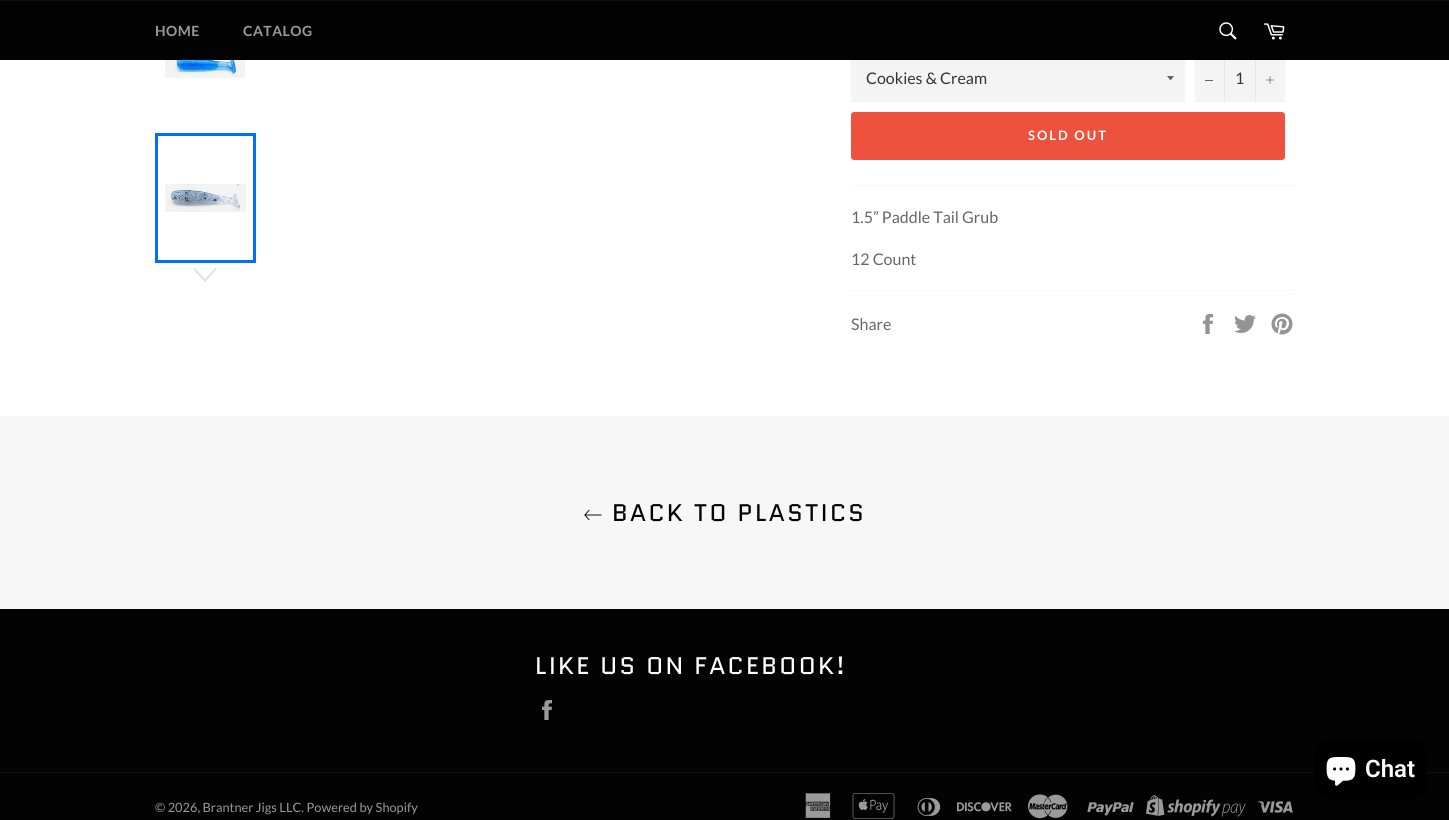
#include <cairo.h>
#include <math.h>
#include <stddef.h>

typedef struct { double x, y, w, h; unsigned color; } box_t;

static void ink(cairo_t *ctx, unsigned color) {
    cairo_set_source_rgb(ctx, (color >> 16) / 255.0, (color >> 8 & 255) / 255.0, (color & 255) / 255.0);
}

static void write_spaced(cairo_t *ctx, double x, double y, const char *s, double letter, double word) {
    cairo_move_to(ctx, x, y);
    while (*s) {
        char ch[5] = {0};
        int n = 0;
        do ch[n++] = *s++; while ((*s & 0xC0) == 0x80);
        cairo_show_text(ctx, ch);
        cairo_rel_move_to(ctx, letter + word * (*ch == ' '), 0);
    }
}

static void round_path(cairo_t *ctx, double x, double y, double w, double h, double r) {
    cairo_new_sub_path(ctx);
    cairo_arc(ctx, x + w - r, y + h - r, r, 0, M_PI / 2);
    cairo_arc(ctx, x + r, y + h - r, r, M_PI / 2, M_PI);
    cairo_arc(ctx, x + r, y + r, r, M_PI, 1.5 * M_PI);
    cairo_arc(ctx, x + w - r, y + r, r, 1.5 * M_PI, 2 * M_PI);
    cairo_close_path(ctx);
}

static void paste(cairo_t *ctx, const char *path, double x, double y, double w, double h) {
    cairo_surface_t *image = cairo_image_surface_create_from_png(path);
    cairo_save(ctx);
    cairo_set_source_surface(ctx, image, x, y);
    cairo_rectangle(ctx, x, y, w, h);
    cairo_fill(ctx);
    cairo_restore(ctx);
    cairo_surface_destroy(image);
}

int main(void) {
    cairo_surface_t *surface = cairo_image_surface_create(CAIRO_FORMAT_RGB24, 1449, 820);
    cairo_t *ctx = cairo_create(surface);
    cairo_font_options_t *options = cairo_font_options_create();
    cairo_font_options_set_hint_metrics(options, CAIRO_HINT_METRICS_OFF);
    cairo_font_options_set_hint_style(options, CAIRO_HINT_STYLE_NONE);
    cairo_set_font_options(ctx, options);
    cairo_set_miter_limit(ctx, 4);
    ink(ctx, 0xFFFFFF);
    cairo_paint(ctx);
    {
        static const box_t items[] = {
            {1195, 60, 90, 42, 0xF4F4F4},
            {1224, 54, 1, 48, 0xE7E7E7},
            {1255, 54, 1, 48, 0xE7E7E7},
            {0, 1, 1449, 59, 0x030303},
            {0, 0, 1449, 1, 0x101010},
        };
        for (size_t i = 0; i < sizeof items / sizeof *items; i++) {
            ink(ctx, items[i].color);
            cairo_rectangle(ctx, items[i].x, items[i].y, items[i].w, items[i].h);
            cairo_fill(ctx);
        }
    }
    cairo_select_font_face(ctx, "Lato", CAIRO_FONT_SLANT_NORMAL, CAIRO_FONT_WEIGHT_BOLD);
    cairo_set_font_size(ctx, 14);
    ink(ctx, 0x9A9A9A);
    write_spaced(ctx, 155, 36, "HOME", 0.5, 0);
    write_spaced(ctx, 243, 36, "CATALOG", 0.5, 0);
    paste(ctx, "media/1.png", 1219, 22, 18, 18);
    paste(ctx, "media/2.png", 1263, 23, 22, 17);
    paste(ctx, "media/3.png", 165, 60, 80, 18);
    paste(ctx, "media/4.png", 165, 184, 81, 28);
    cairo_rectangle(ctx, 156.5, 134.5, 98, 127);
    ink(ctx, 0x006EFF);
    cairo_set_line_width(ctx, 3);
    cairo_stroke(ctx);
    ink(ctx, 0xE0E0E0);
    cairo_new_path(ctx);
    cairo_move_to(ctx, 215.5, 268);
    cairo_line_to(ctx, 216.5, 269.5);
    cairo_line_to(ctx, 205, 282);
    cairo_line_to(ctx, 193.5, 269.5);
    cairo_line_to(ctx, 194.5, 268);
    cairo_line_to(ctx, 205, 279);
    cairo_close_path(ctx);
    cairo_fill(ctx);
    ink(ctx, 0xF4F4F4);
    cairo_rectangle(ctx, 851, 60, 334, 42);
    cairo_fill(ctx);
    ink(ctx, 0x666666);
    cairo_new_path(ctx);
    cairo_move_to(ctx, 1167, 76);
    cairo_curve_to(ctx, 1171.5, 81.5, 1169.5, 81.5, 1174, 76);
    cairo_close_path(ctx);
    cairo_fill(ctx);
    cairo_select_font_face(ctx, "Lato", CAIRO_FONT_SLANT_NORMAL, CAIRO_FONT_WEIGHT_NORMAL);
    cairo_set_font_size(ctx, 16);
    ink(ctx, 0x333333);
    cairo_move_to(ctx, 866, 84);
    cairo_show_text(ctx, "Cookies & Cream");
    ink(ctx, 0x666666);
    cairo_rectangle(ctx, 1205, 80, 8, 1);
    cairo_fill(ctx);
    ink(ctx, 0x333333);
    cairo_move_to(ctx, 1235, 84);
    cairo_show_text(ctx, "1");
    paste(ctx, "media/5.png", 1266, 76, 8, 8);
    ink(ctx, 0xEC523E);
    round_path(ctx, 851, 112, 434, 48, 3);
    cairo_fill(ctx);
    cairo_select_font_face(ctx, "Lato", CAIRO_FONT_SLANT_NORMAL, CAIRO_FONT_WEIGHT_BOLD);
    cairo_set_font_size(ctx, 13);
    ink(ctx, 0xFFFFFF);
    write_spaced(ctx, 1028, 140, "SOLD OUT", 2, 0);
    ink(ctx, 0xF7F7F7);
    cairo_rectangle(ctx, 851, 185, 444, 1);
    cairo_fill(ctx);
    cairo_select_font_face(ctx, "Lato", CAIRO_FONT_SLANT_NORMAL, CAIRO_FONT_WEIGHT_NORMAL);
    cairo_set_font_size(ctx, 16);
    ink(ctx, 0x666666);
    cairo_move_to(ctx, 851, 223);
    cairo_show_text(ctx, "1.5” Paddle Tail Grub");
    cairo_move_to(ctx, 851, 265);
    cairo_show_text(ctx, "12 Count");
    ink(ctx, 0xF7F7F7);
    cairo_rectangle(ctx, 851, 290, 444, 1);
    cairo_fill(ctx);
    ink(ctx, 0x666666);
    cairo_move_to(ctx, 851, 330);
    cairo_show_text(ctx, "Share");
    paste(ctx, "media/6.png", 1203, 314, 10, 20);
    paste(ctx, "media/7.png", 1234, 315, 22, 18);
    paste(ctx, "media/8.png", 1271, 313, 22, 22);
    ink(ctx, 0xF7F7F7);
    cairo_rectangle(ctx, 0, 416, 1449, 193);
    cairo_fill(ctx);
    paste(ctx, "media/9.png", 584, 509, 18, 12);
    cairo_select_font_face(ctx, "Quantico", CAIRO_FONT_SLANT_NORMAL, CAIRO_FONT_WEIGHT_NORMAL);
    cairo_set_font_size(ctx, 24);
    ink(ctx, 0x030303);
    write_spaced(ctx, 612, 521, "BACK TO PLASTICS", 2.4, 0);
    cairo_rectangle(ctx, 0, 609, 1449, 211);
    cairo_fill(ctx);
    ink(ctx, 0xFFFFFF);
    write_spaced(ctx, 535, 674, "LIKE US ON FACEBOOK!", 2.4, 0);
    paste(ctx, "media/10.png", 542, 700, 10, 20);
    ink(ctx, 0x101010);
    cairo_rectangle(ctx, 0, 772, 1449, 1);
    cairo_fill(ctx);
    cairo_select_font_face(ctx, "Lato", CAIRO_FONT_SLANT_NORMAL, CAIRO_FONT_WEIGHT_NORMAL);
    cairo_set_font_size(ctx, 12.8);
    ink(ctx, 0x9A9A9A);
    cairo_move_to(ctx, 155, 812);
    cairo_show_text(ctx, "© 2026, Brantner Jigs LLC. Powered by Shopify");
    paste(ctx, "media/11.png", 805, 793, 26, 25);
    paste(ctx, "media/12.png", 852, 793, 43, 26);
    paste(ctx, "media/13.png", 917, 798, 24, 18);
    paste(ctx, "media/14.png", 957, 802, 55, 10);
    paste(ctx, "media/15.png", 1028, 794, 40, 25);
    paste(ctx, "media/16.png", 1087, 802, 47, 14);
    paste(ctx, "media/17.png", 1146, 795, 100, 22);
    paste(ctx, "media/18.png", 1257, 801, 36, 12);
    ink(ctx, 0x000000);
    round_path(ctx, 1314, 739, 113, 60, 16);
    cairo_fill(ctx);
    paste(ctx, "media/19.png", 1326, 757, 30, 29);
    cairo_select_font_face(ctx, "Roboto SemiBold", CAIRO_FONT_SLANT_NORMAL, CAIRO_FONT_WEIGHT_NORMAL);
    cairo_set_font_size(ctx, 24);
    ink(ctx, 0xFFFFFF);
    cairo_move_to(ctx, 1365, 777);
    cairo_show_text(ctx, "Chat");
    cairo_surface_write_to_png(surface, "image.png");
    cairo_font_options_destroy(options);
    cairo_destroy(ctx);
    cairo_surface_destroy(surface);
    return 0;
}
